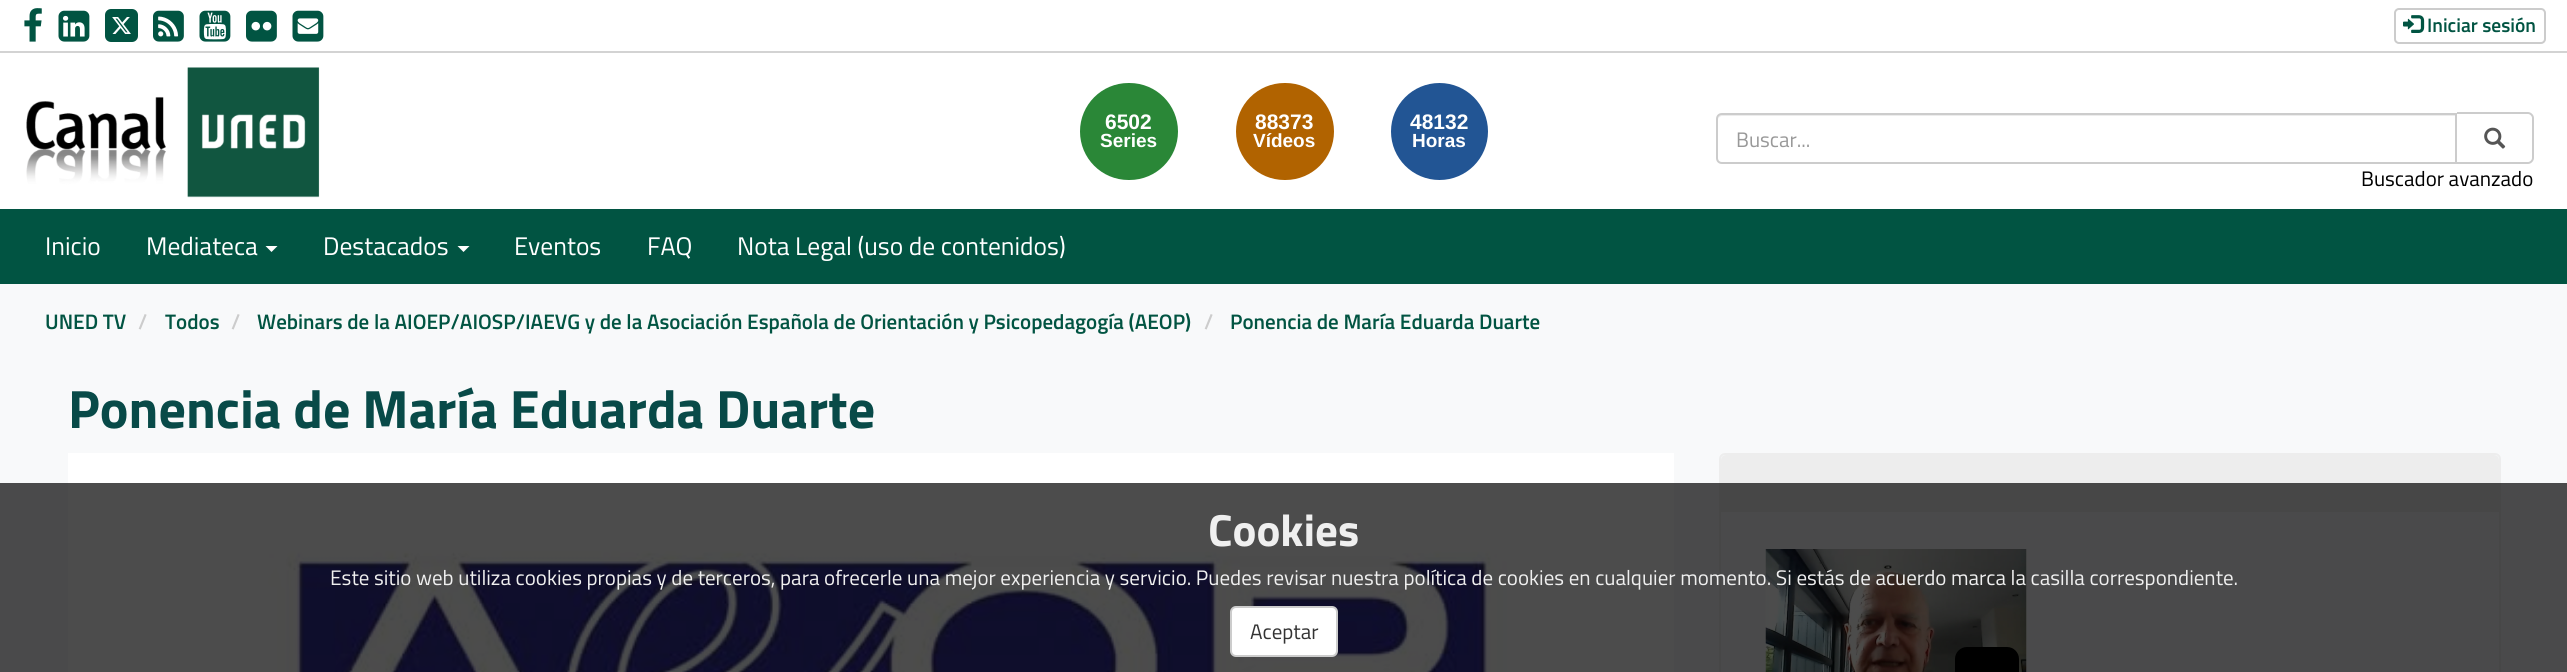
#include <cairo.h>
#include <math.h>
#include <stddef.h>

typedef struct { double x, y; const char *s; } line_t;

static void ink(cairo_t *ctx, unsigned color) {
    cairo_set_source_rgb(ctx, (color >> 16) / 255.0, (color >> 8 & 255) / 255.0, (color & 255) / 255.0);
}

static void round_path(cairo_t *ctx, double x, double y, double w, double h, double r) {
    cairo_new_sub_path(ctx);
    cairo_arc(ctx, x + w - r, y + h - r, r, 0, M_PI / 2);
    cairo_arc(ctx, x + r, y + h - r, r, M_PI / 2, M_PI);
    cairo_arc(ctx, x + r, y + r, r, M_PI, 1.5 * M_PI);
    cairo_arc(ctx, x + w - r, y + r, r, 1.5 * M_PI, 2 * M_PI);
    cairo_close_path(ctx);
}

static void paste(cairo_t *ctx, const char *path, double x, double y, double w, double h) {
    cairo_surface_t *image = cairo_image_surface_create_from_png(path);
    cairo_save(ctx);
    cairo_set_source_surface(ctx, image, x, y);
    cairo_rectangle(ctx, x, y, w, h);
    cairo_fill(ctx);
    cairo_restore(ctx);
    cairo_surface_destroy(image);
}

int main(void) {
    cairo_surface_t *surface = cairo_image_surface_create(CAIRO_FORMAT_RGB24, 2567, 672);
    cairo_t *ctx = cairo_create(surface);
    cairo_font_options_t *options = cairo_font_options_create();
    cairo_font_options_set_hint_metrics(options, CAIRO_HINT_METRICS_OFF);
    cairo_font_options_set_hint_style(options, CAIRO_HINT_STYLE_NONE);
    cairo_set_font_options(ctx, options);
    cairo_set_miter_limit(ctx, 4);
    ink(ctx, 0xFFFFFF);
    cairo_paint(ctx);
    ink(ctx, 0xD3D3D3);
    cairo_rectangle(ctx, 0, 51, 2567, 2);
    cairo_fill(ctx);
    paste(ctx, "media/1.png", 24, 8, 18, 34);
    paste(ctx, "media/2.png", 58, 10, 32, 32);
    ink(ctx, 0x015442);
    round_path(ctx, 105, 9, 33, 33, 6);
    cairo_fill(ctx);
    paste(ctx, "media/3.png", 153, 10, 31, 32);
    paste(ctx, "media/4.png", 199, 10, 32, 32);
    paste(ctx, "media/5.png", 246, 10, 31, 32);
    paste(ctx, "media/6.png", 292, 10, 32, 32);
    paste(ctx, "media/7.png", 112, 17, 19, 17);
    round_path(ctx, 2395, 9, 150, 34, 4);
    ink(ctx, 0xCCCCCC);
    cairo_stroke(ctx);
    paste(ctx, "media/8.png", 2403, 15, 22, 18);
    cairo_select_font_face(ctx, "Titillium Web SemiBold", CAIRO_FONT_SLANT_NORMAL, CAIRO_FONT_WEIGHT_NORMAL);
    cairo_set_font_size(ctx, 19.5);
    ink(ctx, 0x015442);
    cairo_move_to(ctx, 2427, 32);
    cairo_show_text(ctx, "Iniciar sesión");
    paste(ctx, "media/9.png", 26, 67, 294, 131);
    ink(ctx, 0x2A8737);
    round_path(ctx, 1080, 83, 98, 97, 48.5);
    cairo_fill(ctx);
    cairo_select_font_face(ctx, "Liberation Sans", CAIRO_FONT_SLANT_NORMAL, CAIRO_FONT_WEIGHT_BOLD);
    cairo_set_font_size(ctx, 21);
    ink(ctx, 0xFFFFFF);
    cairo_move_to(ctx, 1105, 129);
    cairo_show_text(ctx, "6502");
    cairo_set_font_size(ctx, 19);
    cairo_move_to(ctx, 1100, 147);
    cairo_show_text(ctx, "Series");
    ink(ctx, 0xB16300);
    round_path(ctx, 1236, 83, 98, 97, 48.5);
    cairo_fill(ctx);
    cairo_set_font_size(ctx, 21);
    ink(ctx, 0xFFFFFF);
    cairo_move_to(ctx, 1255, 129);
    cairo_show_text(ctx, "88373");
    cairo_set_font_size(ctx, 19);
    cairo_move_to(ctx, 1253, 147);
    cairo_show_text(ctx, "Vídeos");
    ink(ctx, 0x225594);
    cairo_new_path(ctx);
    cairo_arc(ctx, 1439.5, 131.5, 48.5, 0, 2 * M_PI);
    cairo_fill(ctx);
    cairo_set_font_size(ctx, 21);
    ink(ctx, 0xFFFFFF);
    cairo_move_to(ctx, 1410, 129);
    cairo_show_text(ctx, "48132");
    cairo_set_font_size(ctx, 19);
    cairo_move_to(ctx, 1412, 147);
    cairo_show_text(ctx, "Horas");
    ink(ctx, 0xECECEC);
    cairo_new_path(ctx);
    cairo_move_to(ctx, 1722, 116);
    cairo_line_to(ctx, 2456, 116);
    cairo_line_to(ctx, 2456, 114);
    cairo_line_to(ctx, 1723, 114);
    cairo_curve_to(ctx, 1720, 114, 1718, 117, 1718, 120);
    cairo_curve_to(ctx, 1718, 118, 1720, 116, 1722, 116);
    cairo_close_path(ctx);
    cairo_fill(ctx);
    cairo_new_path(ctx);
    cairo_move_to(ctx, 1722, 114);
    cairo_line_to(ctx, 2456, 114);
    cairo_line_to(ctx, 2456, 163);
    cairo_line_to(ctx, 1722, 163);
    cairo_curve_to(ctx, 1719, 163, 1717, 161, 1717, 158);
    cairo_line_to(ctx, 1717, 119);
    cairo_curve_to(ctx, 1717, 116, 1719, 114, 1722, 114);
    cairo_close_path(ctx);
    ink(ctx, 0xCCCCCC);
    cairo_stroke(ctx);
    cairo_select_font_face(ctx, "Titillium Web", CAIRO_FONT_SLANT_NORMAL, CAIRO_FONT_WEIGHT_NORMAL);
    cairo_set_font_size(ctx, 21);
    ink(ctx, 0x999999);
    cairo_move_to(ctx, 1736, 147);
    cairo_show_text(ctx, "Buscar...");
    ink(ctx, 0xCCCCCC);
    cairo_set_fill_rule(ctx, CAIRO_FILL_RULE_EVEN_ODD);
    cairo_new_path(ctx);
    cairo_move_to(ctx, 2457, 112);
    cairo_line_to(ctx, 2528, 112);
    cairo_curve_to(ctx, 2531, 112, 2534, 115, 2534, 118);
    cairo_line_to(ctx, 2534, 158);
    cairo_curve_to(ctx, 2534, 161, 2531, 164, 2528, 164);
    cairo_line_to(ctx, 2457, 164);
    cairo_close_path(ctx);
    cairo_move_to(ctx, 2457, 114);
    cairo_line_to(ctx, 2528, 114);
    cairo_curve_to(ctx, 2530, 114, 2532, 116, 2532, 118);
    cairo_line_to(ctx, 2532, 158);
    cairo_curve_to(ctx, 2532, 160, 2530, 162, 2528, 162);
    cairo_line_to(ctx, 2457, 162);
    cairo_close_path(ctx);
    cairo_fill(ctx);
    paste(ctx, "media/10.png", 2484, 127, 22, 22);
    ink(ctx, 0x000000);
    cairo_move_to(ctx, 2361, 186);
    cairo_show_text(ctx, "Buscador avanzado");
    ink(ctx, 0x015442);
    cairo_rectangle(ctx, 0, 209, 2567, 75);
    cairo_fill(ctx);
    cairo_set_font_size(ctx, 25.5);
    ink(ctx, 0xFFFFFF);
    cairo_move_to(ctx, 45, 255);
    cairo_show_text(ctx, "Inicio");
    cairo_move_to(ctx, 146, 255);
    cairo_show_text(ctx, "Mediateca");
    cairo_set_fill_rule(ctx, CAIRO_FILL_RULE_WINDING);
    cairo_new_path(ctx);
    cairo_move_to(ctx, 265.5, 246);
    cairo_line_to(ctx, 277.5, 246);
    cairo_line_to(ctx, 271.5, 252);
    cairo_close_path(ctx);
    cairo_fill(ctx);
    cairo_move_to(ctx, 323, 255);
    cairo_show_text(ctx, "Destacados");
    cairo_new_path(ctx);
    cairo_move_to(ctx, 457.5, 246);
    cairo_line_to(ctx, 469.5, 246);
    cairo_line_to(ctx, 463.5, 252);
    cairo_close_path(ctx);
    cairo_fill(ctx);
    {
        static const line_t items[] = {
            {514, 255, "Eventos"},
            {647, 255, "FAQ"},
            {737, 255, "Nota Legal (uso de contenidos)"},
        };
        for (size_t i = 0; i < sizeof items / sizeof *items; i++) {
            cairo_move_to(ctx, items[i].x, items[i].y);
            cairo_show_text(ctx, items[i].s);
        }
    }
    ink(ctx, 0xF8F9FA);
    cairo_rectangle(ctx, 0, 284, 2567, 388);
    cairo_fill(ctx);
    cairo_select_font_face(ctx, "Titillium Web SemiBold", CAIRO_FONT_SLANT_NORMAL, CAIRO_FONT_WEIGHT_NORMAL);
    cairo_set_font_size(ctx, 21);
    ink(ctx, 0x015442);
    cairo_move_to(ctx, 45, 329);
    cairo_show_text(ctx, "UNED TV");
    ink(ctx, 0xCCCCCC);
    cairo_move_to(ctx, 138, 329);
    cairo_show_text(ctx, "/");
    ink(ctx, 0x015442);
    cairo_move_to(ctx, 165, 329);
    cairo_show_text(ctx, "Todos");
    ink(ctx, 0xCCCCCC);
    cairo_move_to(ctx, 231, 329);
    cairo_show_text(ctx, "/");
    ink(ctx, 0x015442);
    cairo_move_to(ctx, 257, 329);
    cairo_show_text(ctx, "Webinars de la AIOEP/AIOSP/IAEVG y de la Asociación Española de Orientación y Psicopedagogía (AEOP)");
    ink(ctx, 0xCCCCCC);
    cairo_move_to(ctx, 1204, 329);
    cairo_show_text(ctx, "/");
    ink(ctx, 0x015442);
    cairo_move_to(ctx, 1230, 329);
    cairo_show_text(ctx, "Ponencia de María Eduarda Duarte");
    cairo_select_font_face(ctx, "Titillium Web", CAIRO_FONT_SLANT_NORMAL, CAIRO_FONT_WEIGHT_BOLD);
    cairo_set_font_size(ctx, 54);
    ink(ctx, 0x084A48);
    cairo_move_to(ctx, 68, 428);
    cairo_show_text(ctx, "Ponencia de María Eduarda Duarte");
    paste(ctx, "media/11.png", 68, 453, 1606, 219);
    round_path(ctx, 1720, 454, 780, 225, 5);
    ink(ctx, 0xEDEDED);
    cairo_stroke(ctx);
    cairo_new_path(ctx);
    cairo_move_to(ctx, 1726, 455);
    cairo_line_to(ctx, 2494, 455);
    cairo_curve_to(ctx, 2497, 455, 2499, 457, 2499, 460);
    cairo_line_to(ctx, 2499, 512);
    cairo_line_to(ctx, 1721, 512);
    cairo_line_to(ctx, 1721, 460);
    cairo_curve_to(ctx, 1721, 457, 1723, 455, 1726, 455);
    cairo_close_path(ctx);
    cairo_fill(ctx);
    paste(ctx, "media/12.png", 1765, 549, 262, 123);
    ink(ctx, 0x000000);
    round_path(ctx, 1955, 647, 64, 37, 12);
    cairo_fill(ctx);
    cairo_set_source_rgba(ctx, 0, 0, 0, 0.7);
    cairo_rectangle(ctx, 0, 483, 2567, 189);
    cairo_fill(ctx);
    cairo_set_font_size(ctx, 45);
    ink(ctx, 0xEFEFEF);
    cairo_move_to(ctx, 1208, 546);
    cairo_show_text(ctx, "Cookies");
    cairo_select_font_face(ctx, "Titillium Web", CAIRO_FONT_SLANT_NORMAL, CAIRO_FONT_WEIGHT_NORMAL);
    cairo_set_font_size(ctx, 21);
    cairo_move_to(ctx, 330, 585);
    cairo_show_text(ctx, "Este sitio web utiliza cookies propias y de terceros, para ofrecerle una mejor experiencia y servicio. Puedes revisar nuestra política de cookies en cualquier momento. Si estás de acuerdo marca la casilla correspondiente.");
    ink(ctx, 0xFFFFFF);
    round_path(ctx, 1231, 607, 106, 49, 5);
    cairo_fill_preserve(ctx);
    ink(ctx, 0xCCCCCC);
    cairo_stroke(ctx);
    ink(ctx, 0x333333);
    cairo_move_to(ctx, 1250, 639);
    cairo_show_text(ctx, "Aceptar");
    cairo_surface_write_to_png(surface, "image.png");
    cairo_font_options_destroy(options);
    cairo_destroy(ctx);
    cairo_surface_destroy(surface);
    return 0;
}
